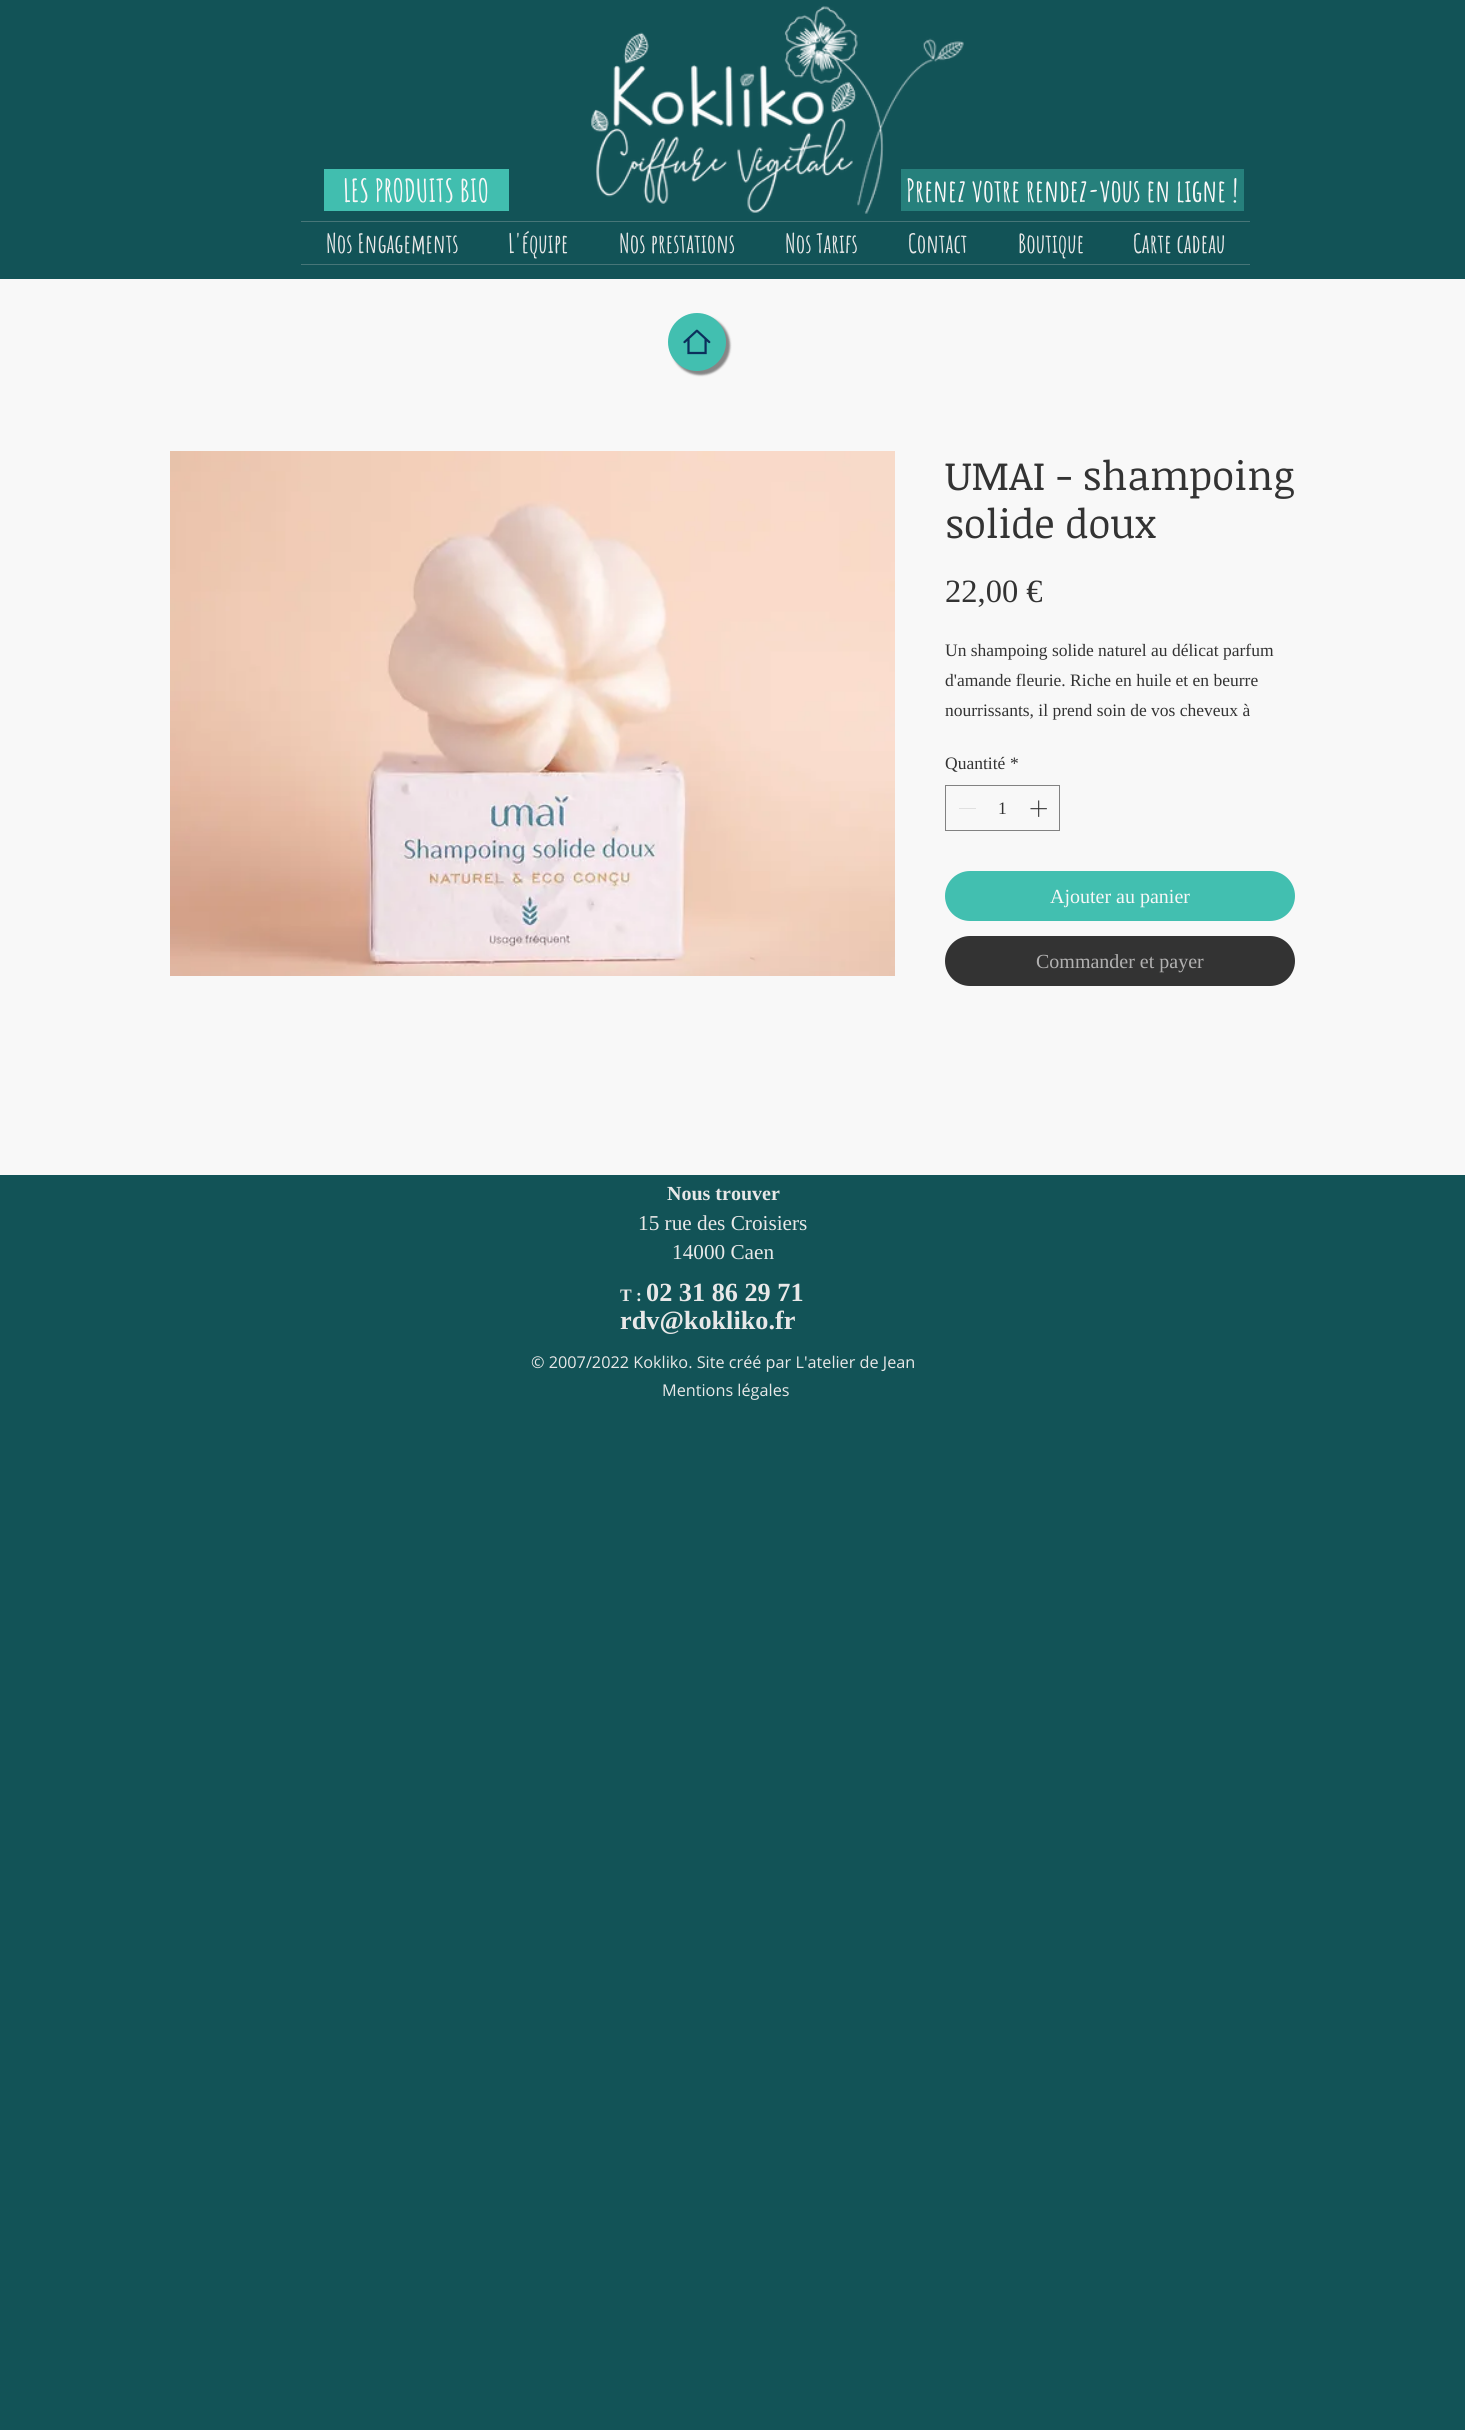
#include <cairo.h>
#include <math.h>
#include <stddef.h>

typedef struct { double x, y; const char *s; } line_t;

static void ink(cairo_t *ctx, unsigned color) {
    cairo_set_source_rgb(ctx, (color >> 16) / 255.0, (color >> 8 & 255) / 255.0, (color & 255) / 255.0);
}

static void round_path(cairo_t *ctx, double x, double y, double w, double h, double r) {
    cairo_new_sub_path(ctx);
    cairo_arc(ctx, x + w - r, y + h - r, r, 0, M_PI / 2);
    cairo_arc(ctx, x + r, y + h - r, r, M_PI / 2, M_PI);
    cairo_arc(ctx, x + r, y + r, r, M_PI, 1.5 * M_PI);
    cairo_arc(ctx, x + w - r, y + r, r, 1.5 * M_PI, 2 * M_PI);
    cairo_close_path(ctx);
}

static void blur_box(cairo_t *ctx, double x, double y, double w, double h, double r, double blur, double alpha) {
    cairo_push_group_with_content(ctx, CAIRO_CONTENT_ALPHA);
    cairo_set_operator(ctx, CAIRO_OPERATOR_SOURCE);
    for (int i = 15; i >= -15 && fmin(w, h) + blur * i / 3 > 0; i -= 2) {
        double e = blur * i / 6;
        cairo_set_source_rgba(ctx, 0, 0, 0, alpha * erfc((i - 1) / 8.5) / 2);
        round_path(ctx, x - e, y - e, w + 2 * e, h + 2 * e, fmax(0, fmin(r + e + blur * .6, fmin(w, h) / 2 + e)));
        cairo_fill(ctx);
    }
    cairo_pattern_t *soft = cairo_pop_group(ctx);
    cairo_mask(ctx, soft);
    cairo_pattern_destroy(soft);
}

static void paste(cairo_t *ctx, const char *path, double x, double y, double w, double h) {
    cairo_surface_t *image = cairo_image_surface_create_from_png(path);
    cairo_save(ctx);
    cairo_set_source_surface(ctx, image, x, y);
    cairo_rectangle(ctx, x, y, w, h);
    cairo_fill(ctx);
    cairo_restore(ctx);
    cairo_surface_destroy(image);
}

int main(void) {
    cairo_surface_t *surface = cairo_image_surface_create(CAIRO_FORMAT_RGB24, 1465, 2430);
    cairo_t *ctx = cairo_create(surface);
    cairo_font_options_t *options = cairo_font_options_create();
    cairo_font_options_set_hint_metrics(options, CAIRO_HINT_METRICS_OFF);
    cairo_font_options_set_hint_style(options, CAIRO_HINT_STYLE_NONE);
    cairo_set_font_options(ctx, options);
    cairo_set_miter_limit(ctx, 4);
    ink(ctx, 0x125357);
    cairo_paint(ctx);
    ink(ctx, 0x41BEAF);
    cairo_rectangle(ctx, 324, 169, 185, 42);
    cairo_fill(ctx);
    cairo_select_font_face(ctx, "Amatic SC", CAIRO_FONT_SLANT_NORMAL, CAIRO_FONT_WEIGHT_BOLD);
    cairo_set_font_size(ctx, 31.25);
    ink(ctx, 0xF7F7F7);
    cairo_move_to(ctx, 343, 202);
    cairo_show_text(ctx, "LES PRODUITS BIO");
    paste(ctx, "media/1.png", 591, 6, 373, 208);
    ink(ctx, 0x26807C);
    cairo_rectangle(ctx, 901, 169, 343, 42);
    cairo_fill(ctx);
    ink(ctx, 0xF7F7F7);
    cairo_move_to(ctx, 906, 202);
    cairo_show_text(ctx, "Prenez votre rendez-vous en ligne !");
    ink(ctx, 0x477678);
    cairo_rectangle(ctx, 301, 221, 949, 1);
    cairo_fill(ctx);
    cairo_rectangle(ctx, 301, 264, 949, 1);
    cairo_fill(ctx);
    cairo_set_font_size(ctx, 26.25);
    ink(ctx, 0xE8E8E8);
    {
        static const line_t items[] = {
            {326, 253, "Nos Engagements"},
            {508, 253, "L'équipe"},
            {619, 253, "Nos prestations"},
            {785, 253, "Nos Tarifs"},
            {908, 253, "Contact"},
            {1018, 253, "Boutique"},
            {1133, 253, "Carte cadeau"},
        };
        for (size_t i = 0; i < sizeof items / sizeof *items; i++) {
            cairo_move_to(ctx, items[i].x, items[i].y);
            cairo_show_text(ctx, items[i].s);
        }
    }
    ink(ctx, 0xF8F8F8);
    cairo_rectangle(ctx, 0, 279, 1465, 896);
    cairo_fill(ctx);
    ink(ctx, 0x000000);
    blur_box(ctx, 671, 316, 59, 59, 29.5, 1, 0.46);
    ink(ctx, 0x42BFB0);
    cairo_arc(ctx, 697, 342, 29, 0, 2 * M_PI);
    cairo_fill(ctx);
    paste(ctx, "media/2.png", 683, 329, 28, 26);
    paste(ctx, "media/3.png", 170, 451, 725, 525);
    cairo_select_font_face(ctx, "Noticia Text", CAIRO_FONT_SLANT_NORMAL, CAIRO_FONT_WEIGHT_NORMAL);
    cairo_set_font_size(ctx, 40);
    ink(ctx, 0x333333);
    cairo_move_to(ctx, 945, 490);
    cairo_show_text(ctx, "UMAI - shampoing");
    cairo_move_to(ctx, 945, 538);
    cairo_show_text(ctx, "solide doux");
    cairo_select_font_face(ctx, "Liberation Serif", CAIRO_FONT_SLANT_NORMAL, CAIRO_FONT_WEIGHT_NORMAL);
    cairo_set_font_size(ctx, 32.5);
    cairo_move_to(ctx, 945, 602);
    cairo_show_text(ctx, "22,00 €");
    cairo_set_font_size(ctx, 17.5);
    {
        static const line_t items[] = {
            {945, 656, "Un shampoing solide naturel au délicat parfum"},
            {945, 686, "d'amande fleurie. Riche en huile et en beurre"},
            {945, 716, "nourrissants, il prend soin de vos cheveux à"},
            {945, 769, "Quantité"},
            {1010, 769, "*"},
        };
        for (size_t i = 0; i < sizeof items / sizeof *items; i++) {
            cairo_move_to(ctx, items[i].x, items[i].y);
            cairo_show_text(ctx, items[i].s);
        }
    }
    cairo_rectangle(ctx, 945.5, 785.5, 114, 45);
    ink(ctx, 0x828282);
    cairo_set_line_width(ctx, 1);
    cairo_stroke(ctx);
    ink(ctx, 0xE0E0E0);
    cairo_rectangle(ctx, 959, 808, 17, 1);
    cairo_fill(ctx);
    ink(ctx, 0x333333);
    cairo_move_to(ctx, 998, 814);
    cairo_show_text(ctx, "1");
    paste(ctx, "media/4.png", 1030, 800, 17, 17);
    ink(ctx, 0x42BFB0);
    round_path(ctx, 945, 871, 350, 50, 25);
    cairo_fill(ctx);
    cairo_set_font_size(ctx, 20);
    ink(ctx, 0xF7F7F7);
    cairo_move_to(ctx, 1050, 903);
    cairo_show_text(ctx, "Ajouter au panier");
    ink(ctx, 0x333333);
    round_path(ctx, 945, 936, 350, 50, 25);
    cairo_fill(ctx);
    ink(ctx, 0xB2B1B1);
    cairo_move_to(ctx, 1036, 968);
    cairo_show_text(ctx, "Commander et payer");
    cairo_select_font_face(ctx, "Liberation Serif", CAIRO_FONT_SLANT_NORMAL, CAIRO_FONT_WEIGHT_BOLD);
    ink(ctx, 0xE8E8E8);
    cairo_move_to(ctx, 667, 1200);
    cairo_show_text(ctx, "Nous trouver");
    cairo_select_font_face(ctx, "Liberation Serif", CAIRO_FONT_SLANT_NORMAL, CAIRO_FONT_WEIGHT_NORMAL);
    cairo_set_font_size(ctx, 21.25);
    cairo_move_to(ctx, 638, 1230);
    cairo_show_text(ctx, "15 rue des Croisiers");
    cairo_move_to(ctx, 672, 1259);
    cairo_show_text(ctx, "14000 Caen");
    cairo_select_font_face(ctx, "Liberation Serif", CAIRO_FONT_SLANT_NORMAL, CAIRO_FONT_WEIGHT_BOLD);
    cairo_set_font_size(ctx, 17.5);
    cairo_move_to(ctx, 620, 1301);
    cairo_show_text(ctx, "T :");
    cairo_set_font_size(ctx, 26.25);
    cairo_move_to(ctx, 646, 1301);
    cairo_show_text(ctx, "02 31 86 29 71");
    cairo_move_to(ctx, 620, 1329);
    cairo_show_text(ctx, "rdv@kokliko.fr");
    cairo_select_font_face(ctx, "Open Sans", CAIRO_FONT_SLANT_NORMAL, CAIRO_FONT_WEIGHT_NORMAL);
    cairo_set_font_size(ctx, 16.25);
    cairo_move_to(ctx, 531, 1368);
    cairo_show_text(ctx, "© 2007/2022 Kokliko. Site créé par L'atelier de Jean");
    cairo_move_to(ctx, 662, 1396);
    cairo_show_text(ctx, "Mentions légales");
    cairo_surface_write_to_png(surface, "image.png");
    cairo_font_options_destroy(options);
    cairo_destroy(ctx);
    cairo_surface_destroy(surface);
    return 0;
}
